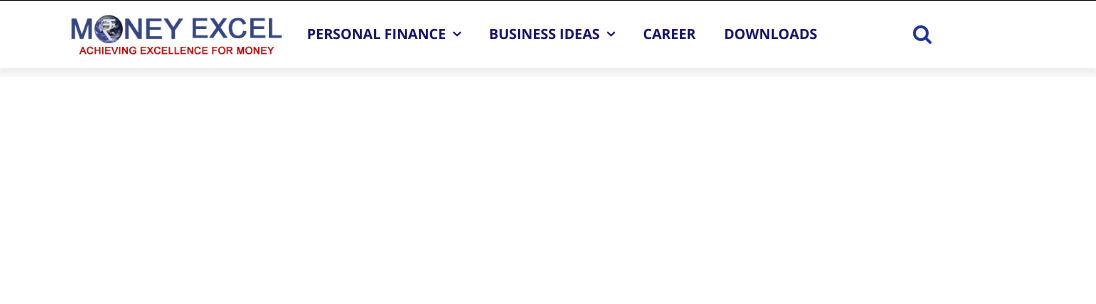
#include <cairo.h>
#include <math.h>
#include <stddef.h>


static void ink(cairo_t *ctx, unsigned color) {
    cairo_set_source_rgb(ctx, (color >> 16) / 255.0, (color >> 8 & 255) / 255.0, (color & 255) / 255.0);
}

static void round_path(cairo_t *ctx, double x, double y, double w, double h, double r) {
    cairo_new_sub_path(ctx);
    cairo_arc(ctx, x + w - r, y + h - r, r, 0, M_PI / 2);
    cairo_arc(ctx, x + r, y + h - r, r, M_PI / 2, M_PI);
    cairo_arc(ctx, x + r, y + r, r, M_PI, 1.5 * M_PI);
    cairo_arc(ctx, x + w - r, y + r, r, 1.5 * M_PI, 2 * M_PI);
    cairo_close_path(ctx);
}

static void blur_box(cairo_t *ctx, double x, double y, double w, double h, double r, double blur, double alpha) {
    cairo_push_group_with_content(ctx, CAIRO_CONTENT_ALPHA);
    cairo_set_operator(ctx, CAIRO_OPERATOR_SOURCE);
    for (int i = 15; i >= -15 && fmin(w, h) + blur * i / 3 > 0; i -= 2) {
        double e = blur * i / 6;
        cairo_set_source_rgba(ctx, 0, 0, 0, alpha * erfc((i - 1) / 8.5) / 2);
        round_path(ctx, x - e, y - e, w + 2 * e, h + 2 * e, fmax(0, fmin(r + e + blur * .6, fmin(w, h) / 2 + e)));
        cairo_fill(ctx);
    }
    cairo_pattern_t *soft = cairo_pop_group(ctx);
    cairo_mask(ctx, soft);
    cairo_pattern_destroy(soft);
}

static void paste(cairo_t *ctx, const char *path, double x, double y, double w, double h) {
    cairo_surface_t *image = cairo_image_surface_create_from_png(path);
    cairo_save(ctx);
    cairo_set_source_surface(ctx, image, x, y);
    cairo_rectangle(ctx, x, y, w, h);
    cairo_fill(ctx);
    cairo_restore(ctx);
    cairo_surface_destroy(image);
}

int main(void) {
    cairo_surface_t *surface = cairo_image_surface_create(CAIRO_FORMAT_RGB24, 1096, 304);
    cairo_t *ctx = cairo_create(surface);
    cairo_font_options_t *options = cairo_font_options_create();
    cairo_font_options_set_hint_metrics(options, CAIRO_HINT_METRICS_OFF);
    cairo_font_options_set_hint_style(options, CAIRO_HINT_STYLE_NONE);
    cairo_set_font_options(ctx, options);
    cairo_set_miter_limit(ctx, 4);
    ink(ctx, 0xFFFFFF);
    cairo_paint(ctx);
    ink(ctx, 0x222222);
    cairo_rectangle(ctx, 0, 0, 1096, 1);
    cairo_fill(ctx);
    paste(ctx, "media/1.png", 71, 14, 211, 41);
    cairo_save(ctx);
    cairo_rectangle(ctx, 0, 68, 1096, 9);
    cairo_clip(ctx);
    ink(ctx, 0x000000);
    blur_box(ctx, 0, 6, 1096, 68, 0, 4, 0.08);
    cairo_restore(ctx);
    cairo_select_font_face(ctx, "Open Sans", CAIRO_FONT_SLANT_NORMAL, CAIRO_FONT_WEIGHT_BOLD);
    cairo_set_font_size(ctx, 14);
    ink(ctx, 0x120F70);
    cairo_move_to(ctx, 307, 39);
    cairo_show_text(ctx, "PERSONAL FINANCE");
    paste(ctx, "media/2.png", 453, 31, 9, 6);
    cairo_move_to(ctx, 489, 39);
    cairo_show_text(ctx, "BUSINESS IDEAS");
    paste(ctx, "media/2.png", 607, 31, 9, 6);
    cairo_move_to(ctx, 643, 39);
    cairo_show_text(ctx, "CAREER");
    cairo_move_to(ctx, 724, 39);
    cairo_show_text(ctx, "DOWNLOADS");
    paste(ctx, "media/3.png", 913, 25, 19, 19);
    cairo_surface_write_to_png(surface, "image.png");
    cairo_font_options_destroy(options);
    cairo_destroy(ctx);
    cairo_surface_destroy(surface);
    return 0;
}
